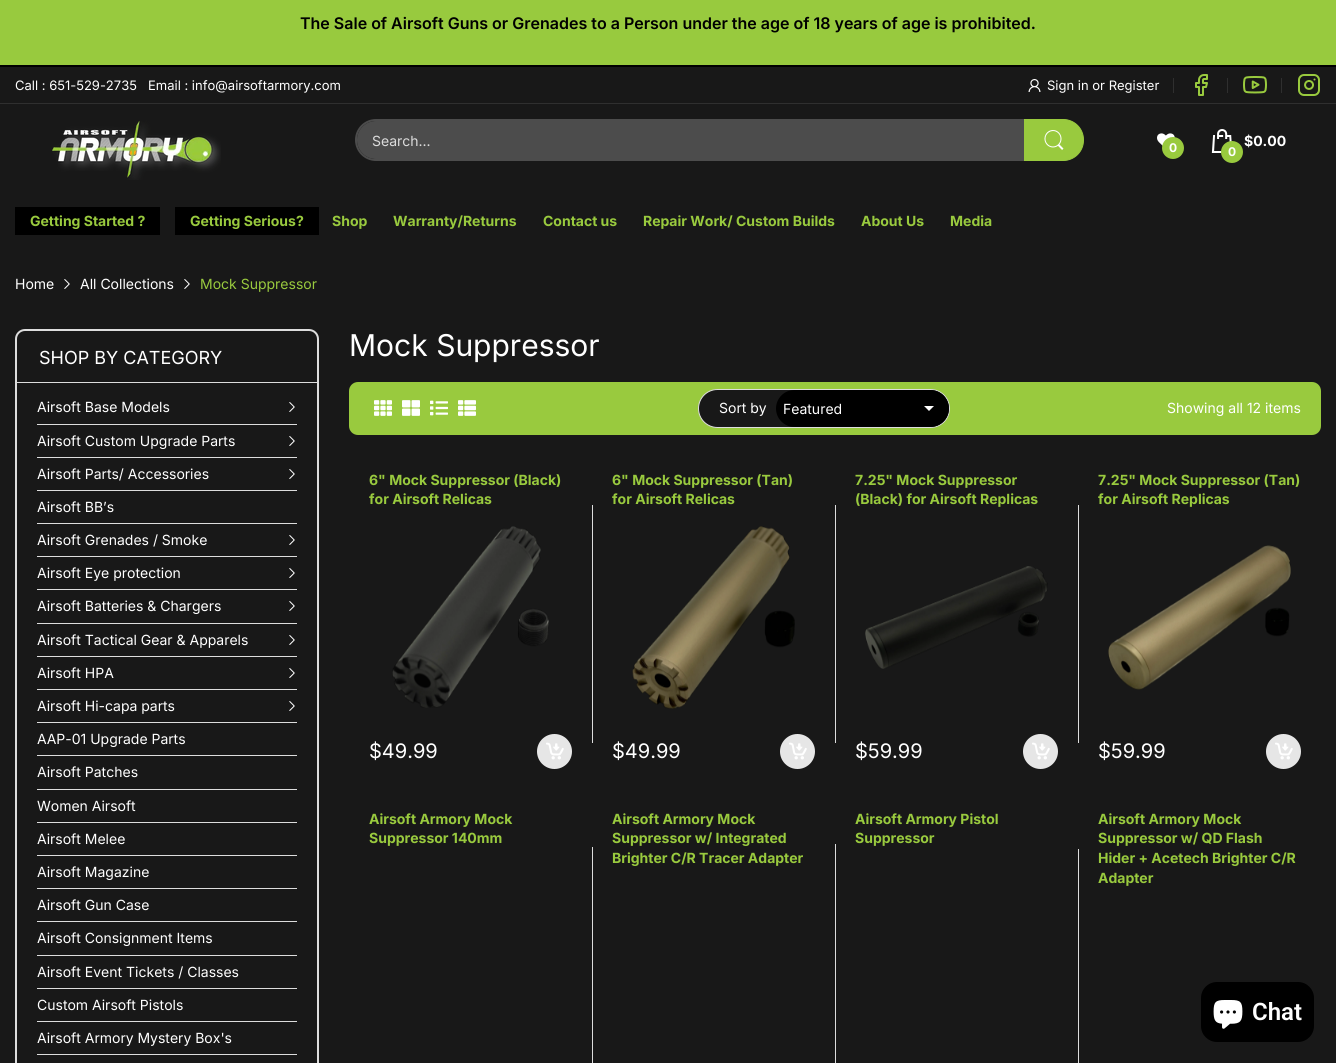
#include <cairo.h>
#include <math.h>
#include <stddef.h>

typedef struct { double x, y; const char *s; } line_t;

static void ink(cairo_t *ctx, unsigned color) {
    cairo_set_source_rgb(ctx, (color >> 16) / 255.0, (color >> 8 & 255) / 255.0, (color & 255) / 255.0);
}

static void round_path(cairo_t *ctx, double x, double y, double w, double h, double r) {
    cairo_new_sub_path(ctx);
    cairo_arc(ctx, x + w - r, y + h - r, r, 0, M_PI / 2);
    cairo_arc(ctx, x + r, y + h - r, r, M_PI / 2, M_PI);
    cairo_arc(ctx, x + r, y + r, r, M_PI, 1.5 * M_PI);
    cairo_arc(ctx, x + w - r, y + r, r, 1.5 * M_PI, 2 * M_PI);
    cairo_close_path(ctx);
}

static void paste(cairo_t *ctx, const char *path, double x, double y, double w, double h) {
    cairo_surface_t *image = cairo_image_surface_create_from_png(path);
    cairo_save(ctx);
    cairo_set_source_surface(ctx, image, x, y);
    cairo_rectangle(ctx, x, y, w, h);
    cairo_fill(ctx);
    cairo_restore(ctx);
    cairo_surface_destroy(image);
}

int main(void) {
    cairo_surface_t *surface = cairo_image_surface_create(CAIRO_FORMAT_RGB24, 1336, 1063);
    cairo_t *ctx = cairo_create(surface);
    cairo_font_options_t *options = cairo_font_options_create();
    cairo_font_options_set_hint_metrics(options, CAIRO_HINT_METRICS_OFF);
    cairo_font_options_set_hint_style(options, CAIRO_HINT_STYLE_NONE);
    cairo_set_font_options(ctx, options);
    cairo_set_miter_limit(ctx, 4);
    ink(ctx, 0x181818);
    cairo_paint(ctx);
    ink(ctx, 0x98CA3E);
    cairo_rectangle(ctx, 0, 0, 1336, 65);
    cairo_fill(ctx);
    ink(ctx, 0x000000);
    cairo_rectangle(ctx, 0, 65, 1336, 2);
    cairo_fill(ctx);
    cairo_select_font_face(ctx, "Inter SemiBold", CAIRO_FONT_SLANT_NORMAL, CAIRO_FONT_WEIGHT_NORMAL);
    cairo_set_font_size(ctx, 16);
    cairo_move_to(ctx, 300, 29);
    cairo_show_text(ctx, "The Sale of Airsoft Guns or Grenades to a Person under the age of 18 years of age is prohibited.");
    ink(ctx, 0x2F2F2F);
    cairo_rectangle(ctx, 0, 103, 1336, 1);
    cairo_fill(ctx);
    cairo_select_font_face(ctx, "Inter", CAIRO_FONT_SLANT_NORMAL, CAIRO_FONT_WEIGHT_NORMAL);
    cairo_set_font_size(ctx, 13);
    ink(ctx, 0xFFFFFF);
    cairo_move_to(ctx, 15, 90);
    cairo_show_text(ctx, "Call : 651-529-2735");
    cairo_move_to(ctx, 148, 90);
    cairo_show_text(ctx, "Email : info@airsoftarmory.com");
    paste(ctx, "media/1.png", 1028, 79, 13, 13);
    cairo_move_to(ctx, 1047, 90);
    cairo_show_text(ctx, "Sign in or Register");
    ink(ctx, 0x2F2F2F);
    cairo_rectangle(ctx, 1173, 78, 1, 15);
    cairo_fill(ctx);
    paste(ctx, "media/2.png", 1195, 74, 13, 22);
    cairo_rectangle(ctx, 1227, 78, 1, 15);
    cairo_fill(ctx);
    paste(ctx, "media/3.png", 1243, 76, 24, 18);
    cairo_rectangle(ctx, 1281, 78, 1, 15);
    cairo_fill(ctx);
    paste(ctx, "media/4.png", 1298, 74, 22, 22);
    paste(ctx, "media/5.png", 52, 120, 169, 60);
    round_path(ctx, 356, 120, 726, 40, 20);
    ink(ctx, 0x4C4C4C);
    cairo_stroke(ctx);
    round_path(ctx, 357, 121, 724, 38, 19);
    cairo_fill(ctx);
    cairo_set_font_size(ctx, 14);
    ink(ctx, 0xDBDBDB);
    cairo_move_to(ctx, 372, 146);
    cairo_show_text(ctx, "Search...");
    ink(ctx, 0x99CA3E);
    cairo_new_path(ctx);
    cairo_move_to(ctx, 1024.5, 119.5);
    cairo_line_to(ctx, 1063, 119.5);
    cairo_curve_to(ctx, 1074.5, 119.5, 1083.5, 128.5, 1083.5, 140);
    cairo_curve_to(ctx, 1083.5, 151.5, 1074.5, 160.5, 1063, 160.5);
    cairo_line_to(ctx, 1024.5, 160.5);
    cairo_close_path(ctx);
    cairo_fill_preserve(ctx);
    cairo_set_line_width(ctx, 1);
    cairo_stroke(ctx);
    paste(ctx, "media/6.png", 1044, 130, 20, 20);
    paste(ctx, "media/7.png", 1157, 133, 18, 13);
    cairo_arc(ctx, 1173, 148, 11, 0, 2 * M_PI);
    cairo_fill(ctx);
    cairo_select_font_face(ctx, "Inter", CAIRO_FONT_SLANT_NORMAL, CAIRO_FONT_WEIGHT_BOLD);
    cairo_set_font_size(ctx, 12);
    ink(ctx, 0xFFFFFF);
    cairo_move_to(ctx, 1169, 152);
    cairo_show_text(ctx, "0");
    cairo_set_font_size(ctx, 14);
    cairo_move_to(ctx, 1244, 146);
    cairo_show_text(ctx, "$0.00");
    paste(ctx, "media/8.png", 1211, 129, 21, 24);
    ink(ctx, 0x99CA3E);
    cairo_arc(ctx, 1232, 152, 11, 0, 2 * M_PI);
    cairo_fill(ctx);
    cairo_set_font_size(ctx, 12);
    ink(ctx, 0xFFFFFF);
    cairo_move_to(ctx, 1228, 156);
    cairo_show_text(ctx, "0");
    ink(ctx, 0x000000);
    cairo_rectangle(ctx, 15, 207, 145, 28);
    cairo_fill(ctx);
    cairo_set_font_size(ctx, 14);
    ink(ctx, 0x99CA3E);
    cairo_move_to(ctx, 30, 226);
    cairo_show_text(ctx, "Getting Started ?");
    ink(ctx, 0x000000);
    cairo_rectangle(ctx, 175, 207, 144, 28);
    cairo_fill(ctx);
    ink(ctx, 0x99CA3E);
    {
        static const line_t items[] = {
            {190, 226, "Getting Serious?"},
            {332, 226, "Shop"},
            {393, 226, "Warranty/Returns"},
            {543, 226, "Contact us"},
            {643, 226, "Repair Work/ Custom Builds"},
            {861, 226, "About Us"},
            {950, 226, "Media"},
        };
        for (size_t i = 0; i < sizeof items / sizeof *items; i++) {
            cairo_move_to(ctx, items[i].x, items[i].y);
            cairo_show_text(ctx, items[i].s);
        }
    }
    cairo_select_font_face(ctx, "Inter", CAIRO_FONT_SLANT_NORMAL, CAIRO_FONT_WEIGHT_NORMAL);
    ink(ctx, 0xFFFFFF);
    cairo_move_to(ctx, 15, 289);
    cairo_show_text(ctx, "Home");
    paste(ctx, "media/9.png", 64, 279, 6, 10);
    cairo_move_to(ctx, 80, 289);
    cairo_show_text(ctx, "All Collections");
    paste(ctx, "media/9.png", 184, 279, 6, 10);
    ink(ctx, 0x99CA3E);
    cairo_move_to(ctx, 200, 289);
    cairo_show_text(ctx, "Mock Suppressor");
    round_path(ctx, 16, 330, 302, 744, 9);
    ink(ctx, 0xDDDDDD);
    cairo_set_line_width(ctx, 2);
    cairo_stroke(ctx);
    cairo_rectangle(ctx, 17, 382, 300, 1);
    cairo_fill(ctx);
    cairo_set_font_size(ctx, 18);
    ink(ctx, 0xFFFFFF);
    cairo_move_to(ctx, 39, 364);
    cairo_show_text(ctx, "SHOP BY CATEGORY");
    ink(ctx, 0xDDDDDD);
    cairo_rectangle(ctx, 37, 424, 260, 1);
    cairo_fill(ctx);
    cairo_set_font_size(ctx, 14);
    ink(ctx, 0xFFFFFF);
    cairo_move_to(ctx, 37, 412);
    cairo_show_text(ctx, "Airsoft Base Models");
    paste(ctx, "media/9.png", 289, 402, 6, 10);
    ink(ctx, 0xDDDDDD);
    cairo_rectangle(ctx, 37, 457, 260, 1);
    cairo_fill(ctx);
    ink(ctx, 0xFFFFFF);
    cairo_move_to(ctx, 37, 446);
    cairo_show_text(ctx, "Airsoft Custom Upgrade Parts");
    paste(ctx, "media/9.png", 289, 436, 6, 10);
    ink(ctx, 0xDDDDDD);
    cairo_rectangle(ctx, 37, 490, 260, 1);
    cairo_fill(ctx);
    ink(ctx, 0xFFFFFF);
    cairo_move_to(ctx, 37, 479);
    cairo_show_text(ctx, "Airsoft Parts/ Accessories");
    paste(ctx, "media/9.png", 289, 469, 6, 10);
    ink(ctx, 0xDDDDDD);
    cairo_rectangle(ctx, 37, 523, 260, 1);
    cairo_fill(ctx);
    ink(ctx, 0xFFFFFF);
    cairo_move_to(ctx, 37, 512);
    cairo_show_text(ctx, "Airsoft BB’s");
    ink(ctx, 0xDDDDDD);
    cairo_rectangle(ctx, 37, 556, 260, 1);
    cairo_fill(ctx);
    ink(ctx, 0xFFFFFF);
    cairo_move_to(ctx, 37, 545);
    cairo_show_text(ctx, "Airsoft Grenades / Smoke");
    paste(ctx, "media/9.png", 289, 535, 6, 10);
    ink(ctx, 0xDDDDDD);
    cairo_rectangle(ctx, 37, 589, 260, 1);
    cairo_fill(ctx);
    ink(ctx, 0xFFFFFF);
    cairo_move_to(ctx, 37, 578);
    cairo_show_text(ctx, "Airsoft Eye protection");
    paste(ctx, "media/9.png", 289, 568, 6, 10);
    ink(ctx, 0xDDDDDD);
    cairo_rectangle(ctx, 37, 623, 260, 1);
    cairo_fill(ctx);
    ink(ctx, 0xFFFFFF);
    cairo_move_to(ctx, 37, 611);
    cairo_show_text(ctx, "Airsoft Batteries & Chargers");
    paste(ctx, "media/9.png", 289, 601, 6, 10);
    ink(ctx, 0xDDDDDD);
    cairo_rectangle(ctx, 37, 656, 260, 1);
    cairo_fill(ctx);
    ink(ctx, 0xFFFFFF);
    cairo_move_to(ctx, 37, 645);
    cairo_show_text(ctx, "Airsoft Tactical Gear & Apparels");
    paste(ctx, "media/9.png", 289, 635, 6, 10);
    ink(ctx, 0xDDDDDD);
    cairo_rectangle(ctx, 37, 689, 260, 1);
    cairo_fill(ctx);
    ink(ctx, 0xFFFFFF);
    cairo_move_to(ctx, 37, 678);
    cairo_show_text(ctx, "Airsoft HPA");
    paste(ctx, "media/9.png", 289, 668, 6, 10);
    ink(ctx, 0xDDDDDD);
    cairo_rectangle(ctx, 37, 722, 260, 1);
    cairo_fill(ctx);
    ink(ctx, 0xFFFFFF);
    cairo_move_to(ctx, 37, 711);
    cairo_show_text(ctx, "Airsoft Hi-capa parts");
    paste(ctx, "media/9.png", 289, 701, 6, 10);
    ink(ctx, 0xDDDDDD);
    cairo_rectangle(ctx, 37, 755, 260, 1);
    cairo_fill(ctx);
    ink(ctx, 0xFFFFFF);
    cairo_move_to(ctx, 37, 744);
    cairo_show_text(ctx, "AAP-01 Upgrade Parts");
    ink(ctx, 0xDDDDDD);
    cairo_rectangle(ctx, 37, 789, 260, 1);
    cairo_fill(ctx);
    ink(ctx, 0xFFFFFF);
    cairo_move_to(ctx, 37, 777);
    cairo_show_text(ctx, "Airsoft Patches");
    ink(ctx, 0xDDDDDD);
    cairo_rectangle(ctx, 37, 822, 260, 1);
    cairo_fill(ctx);
    ink(ctx, 0xFFFFFF);
    cairo_move_to(ctx, 37, 811);
    cairo_show_text(ctx, "Women Airsoft");
    ink(ctx, 0xDDDDDD);
    cairo_rectangle(ctx, 37, 855, 260, 1);
    cairo_fill(ctx);
    ink(ctx, 0xFFFFFF);
    cairo_move_to(ctx, 37, 844);
    cairo_show_text(ctx, "Airsoft Melee");
    ink(ctx, 0xDDDDDD);
    cairo_rectangle(ctx, 37, 888, 260, 1);
    cairo_fill(ctx);
    ink(ctx, 0xFFFFFF);
    cairo_move_to(ctx, 37, 877);
    cairo_show_text(ctx, "Airsoft Magazine");
    ink(ctx, 0xDDDDDD);
    cairo_rectangle(ctx, 37, 921, 260, 1);
    cairo_fill(ctx);
    ink(ctx, 0xFFFFFF);
    cairo_move_to(ctx, 37, 910);
    cairo_show_text(ctx, "Airsoft Gun Case");
    ink(ctx, 0xDDDDDD);
    cairo_rectangle(ctx, 37, 955, 260, 1);
    cairo_fill(ctx);
    ink(ctx, 0xFFFFFF);
    cairo_move_to(ctx, 37, 943);
    cairo_show_text(ctx, "Airsoft Consignment Items");
    ink(ctx, 0xDDDDDD);
    cairo_rectangle(ctx, 37, 988, 260, 1);
    cairo_fill(ctx);
    ink(ctx, 0xFFFFFF);
    cairo_move_to(ctx, 37, 977);
    cairo_show_text(ctx, "Airsoft Event Tickets / Classes");
    ink(ctx, 0xDDDDDD);
    cairo_rectangle(ctx, 37, 1021, 260, 1);
    cairo_fill(ctx);
    ink(ctx, 0xFFFFFF);
    cairo_move_to(ctx, 37, 1010);
    cairo_show_text(ctx, "Custom Airsoft Pistols");
    ink(ctx, 0xDDDDDD);
    cairo_rectangle(ctx, 37, 1054, 260, 1);
    cairo_fill(ctx);
    ink(ctx, 0xFFFFFF);
    cairo_move_to(ctx, 37, 1043);
    cairo_show_text(ctx, "Airsoft Armory Mystery Box's");
    cairo_set_font_size(ctx, 30);
    cairo_move_to(ctx, 349, 356);
    cairo_show_text(ctx, "Mock Suppressor");
    ink(ctx, 0x99CA3E);
    round_path(ctx, 349, 382, 972, 53, 9);
    cairo_fill(ctx);
    paste(ctx, "media/10.png", 374, 400, 18, 16);
    paste(ctx, "media/11.png", 402, 400, 18, 16);
    paste(ctx, "media/12.png", 430, 400, 18, 16);
    paste(ctx, "media/13.png", 458, 400, 18, 16);
    ink(ctx, 0x181818);
    round_path(ctx, 698.5, 389.5, 251, 38, 19);
    cairo_fill_preserve(ctx);
    ink(ctx, 0xDDDDDD);
    cairo_set_line_width(ctx, 1);
    cairo_stroke(ctx);
    cairo_set_font_size(ctx, 14);
    ink(ctx, 0xFFFFFF);
    cairo_move_to(ctx, 719, 413);
    cairo_show_text(ctx, "Sort by");
    ink(ctx, 0x000000);
    round_path(ctx, 776, 390, 173, 37, 18.5);
    cairo_fill(ctx);
    ink(ctx, 0xFFFFFF);
    cairo_move_to(ctx, 783, 414);
    cairo_show_text(ctx, "Featured");
    cairo_set_fill_rule(ctx, CAIRO_FILL_RULE_EVEN_ODD);
    cairo_new_path(ctx);
    cairo_move_to(ctx, 924, 406);
    cairo_line_to(ctx, 929, 411);
    cairo_line_to(ctx, 934, 406);
    cairo_close_path(ctx);
    cairo_fill(ctx);
    cairo_move_to(ctx, 1167, 413);
    cairo_show_text(ctx, "Showing all 12 items");
    cairo_select_font_face(ctx, "Inter", CAIRO_FONT_SLANT_NORMAL, CAIRO_FONT_WEIGHT_BOLD);
    ink(ctx, 0x99CA3E);
    cairo_move_to(ctx, 369, 485);
    cairo_show_text(ctx, "6\" Mock Suppressor (Black)");
    cairo_move_to(ctx, 369, 504);
    cairo_show_text(ctx, "for Airsoft Relicas");
    paste(ctx, "media/14.png", 392, 526, 157, 182);
    cairo_select_font_face(ctx, "Inter", CAIRO_FONT_SLANT_NORMAL, CAIRO_FONT_WEIGHT_NORMAL);
    cairo_set_font_size(ctx, 20);
    ink(ctx, 0xFFFFFF);
    cairo_move_to(ctx, 369, 758);
    cairo_show_text(ctx, "$49.99");
    ink(ctx, 0xE6E6E6);
    cairo_new_path(ctx);
    cairo_arc(ctx, 554.5, 751.5, 17.5, 0, 2 * M_PI);
    cairo_fill(ctx);
    paste(ctx, "media/15.png", 546, 742, 18, 18);
    cairo_select_font_face(ctx, "Inter", CAIRO_FONT_SLANT_NORMAL, CAIRO_FONT_WEIGHT_BOLD);
    cairo_set_font_size(ctx, 14);
    ink(ctx, 0x99CA3E);
    cairo_move_to(ctx, 612, 485);
    cairo_show_text(ctx, "6\" Mock Suppressor (Tan)");
    cairo_move_to(ctx, 612, 504);
    cairo_show_text(ctx, "for Airsoft Relicas");
    paste(ctx, "media/16.png", 632, 526, 163, 183);
    ink(ctx, 0xDDDDDD);
    cairo_rectangle(ctx, 592, 505, 1, 238);
    cairo_fill(ctx);
    cairo_select_font_face(ctx, "Inter", CAIRO_FONT_SLANT_NORMAL, CAIRO_FONT_WEIGHT_NORMAL);
    cairo_set_font_size(ctx, 20);
    ink(ctx, 0xFFFFFF);
    cairo_move_to(ctx, 612, 758);
    cairo_show_text(ctx, "$49.99");
    ink(ctx, 0xE6E6E6);
    cairo_new_path(ctx);
    cairo_arc(ctx, 797.5, 751.5, 17.5, 0, 2 * M_PI);
    cairo_fill(ctx);
    paste(ctx, "media/15.png", 789, 742, 18, 18);
    cairo_select_font_face(ctx, "Inter", CAIRO_FONT_SLANT_NORMAL, CAIRO_FONT_WEIGHT_BOLD);
    cairo_set_font_size(ctx, 14);
    ink(ctx, 0x99CA3E);
    cairo_move_to(ctx, 855, 485);
    cairo_show_text(ctx, "7.25\" Mock Suppressor");
    cairo_move_to(ctx, 855, 504);
    cairo_show_text(ctx, "(Black) for Airsoft Replicas");
    paste(ctx, "media/17.png", 865, 566, 183, 103);
    ink(ctx, 0xDDDDDD);
    cairo_rectangle(ctx, 835, 505, 1, 238);
    cairo_fill(ctx);
    cairo_select_font_face(ctx, "Inter", CAIRO_FONT_SLANT_NORMAL, CAIRO_FONT_WEIGHT_NORMAL);
    cairo_set_font_size(ctx, 20);
    ink(ctx, 0xFFFFFF);
    cairo_move_to(ctx, 855, 758);
    cairo_show_text(ctx, "$59.99");
    ink(ctx, 0xE6E6E6);
    cairo_new_path(ctx);
    cairo_arc(ctx, 1040.5, 751.5, 17.5, 0, 2 * M_PI);
    cairo_fill(ctx);
    paste(ctx, "media/15.png", 1032, 742, 18, 18);
    cairo_select_font_face(ctx, "Inter", CAIRO_FONT_SLANT_NORMAL, CAIRO_FONT_WEIGHT_BOLD);
    cairo_set_font_size(ctx, 14);
    ink(ctx, 0x99CA3E);
    cairo_move_to(ctx, 1098, 485);
    cairo_show_text(ctx, "7.25\" Mock Suppressor (Tan)");
    cairo_move_to(ctx, 1098, 504);
    cairo_show_text(ctx, "for Airsoft Replicas");
    paste(ctx, "media/18.png", 1108, 545, 183, 145);
    ink(ctx, 0xDDDDDD);
    cairo_rectangle(ctx, 1078, 505, 1, 238);
    cairo_fill(ctx);
    cairo_select_font_face(ctx, "Inter", CAIRO_FONT_SLANT_NORMAL, CAIRO_FONT_WEIGHT_NORMAL);
    cairo_set_font_size(ctx, 20);
    ink(ctx, 0xFFFFFF);
    cairo_move_to(ctx, 1098, 758);
    cairo_show_text(ctx, "$59.99");
    ink(ctx, 0xE6E6E6);
    cairo_new_path(ctx);
    cairo_arc(ctx, 1283.5, 751.5, 17.5, 0, 2 * M_PI);
    cairo_fill(ctx);
    paste(ctx, "media/15.png", 1275, 742, 18, 18);
    cairo_select_font_face(ctx, "Inter", CAIRO_FONT_SLANT_NORMAL, CAIRO_FONT_WEIGHT_BOLD);
    cairo_set_font_size(ctx, 14);
    ink(ctx, 0x99CA3E);
    {
        static const line_t items[] = {
            {369, 824, "Airsoft Armory Mock"},
            {369, 843, "Suppressor 140mm"},
            {612, 824, "Airsoft Armory Mock"},
            {612, 843, "Suppressor w/ Integrated"},
            {612, 863, "Brighter C/R Tracer Adapter"},
        };
        for (size_t i = 0; i < sizeof items / sizeof *items; i++) {
            cairo_move_to(ctx, items[i].x, items[i].y);
            cairo_show_text(ctx, items[i].s);
        }
    }
    ink(ctx, 0xDDDDDD);
    cairo_rectangle(ctx, 592, 847, 1, 216);
    cairo_fill(ctx);
    ink(ctx, 0x99CA3E);
    cairo_move_to(ctx, 855, 824);
    cairo_show_text(ctx, "Airsoft Armory Pistol");
    cairo_move_to(ctx, 855, 843);
    cairo_show_text(ctx, "Suppressor");
    ink(ctx, 0xDDDDDD);
    cairo_rectangle(ctx, 835, 844, 1, 219);
    cairo_fill(ctx);
    cairo_rectangle(ctx, 1078, 849, 1, 214);
    cairo_fill(ctx);
    ink(ctx, 0x99CA3E);
    {
        static const line_t items[] = {
            {1098, 824, "Airsoft Armory Mock"},
            {1098, 843, "Suppressor w/ QD Flash"},
            {1098, 863, "Hider + Acetech Brighter C/R"},
            {1098, 883, "Adapter"},
        };
        for (size_t i = 0; i < sizeof items / sizeof *items; i++) {
            cairo_move_to(ctx, items[i].x, items[i].y);
            cairo_show_text(ctx, items[i].s);
        }
    }
    ink(ctx, 0x000000);
    round_path(ctx, 1201, 982, 113, 60, 16);
    cairo_fill(ctx);
    paste(ctx, "media/19.png", 1213, 1000, 30, 29);
    cairo_select_font_face(ctx, "Roboto SemiBold", CAIRO_FONT_SLANT_NORMAL, CAIRO_FONT_WEIGHT_NORMAL);
    cairo_set_font_size(ctx, 24);
    ink(ctx, 0xFFFFFF);
    cairo_move_to(ctx, 1252, 1020);
    cairo_show_text(ctx, "Chat");
    cairo_surface_write_to_png(surface, "image.png");
    cairo_font_options_destroy(options);
    cairo_destroy(ctx);
    cairo_surface_destroy(surface);
    return 0;
}
